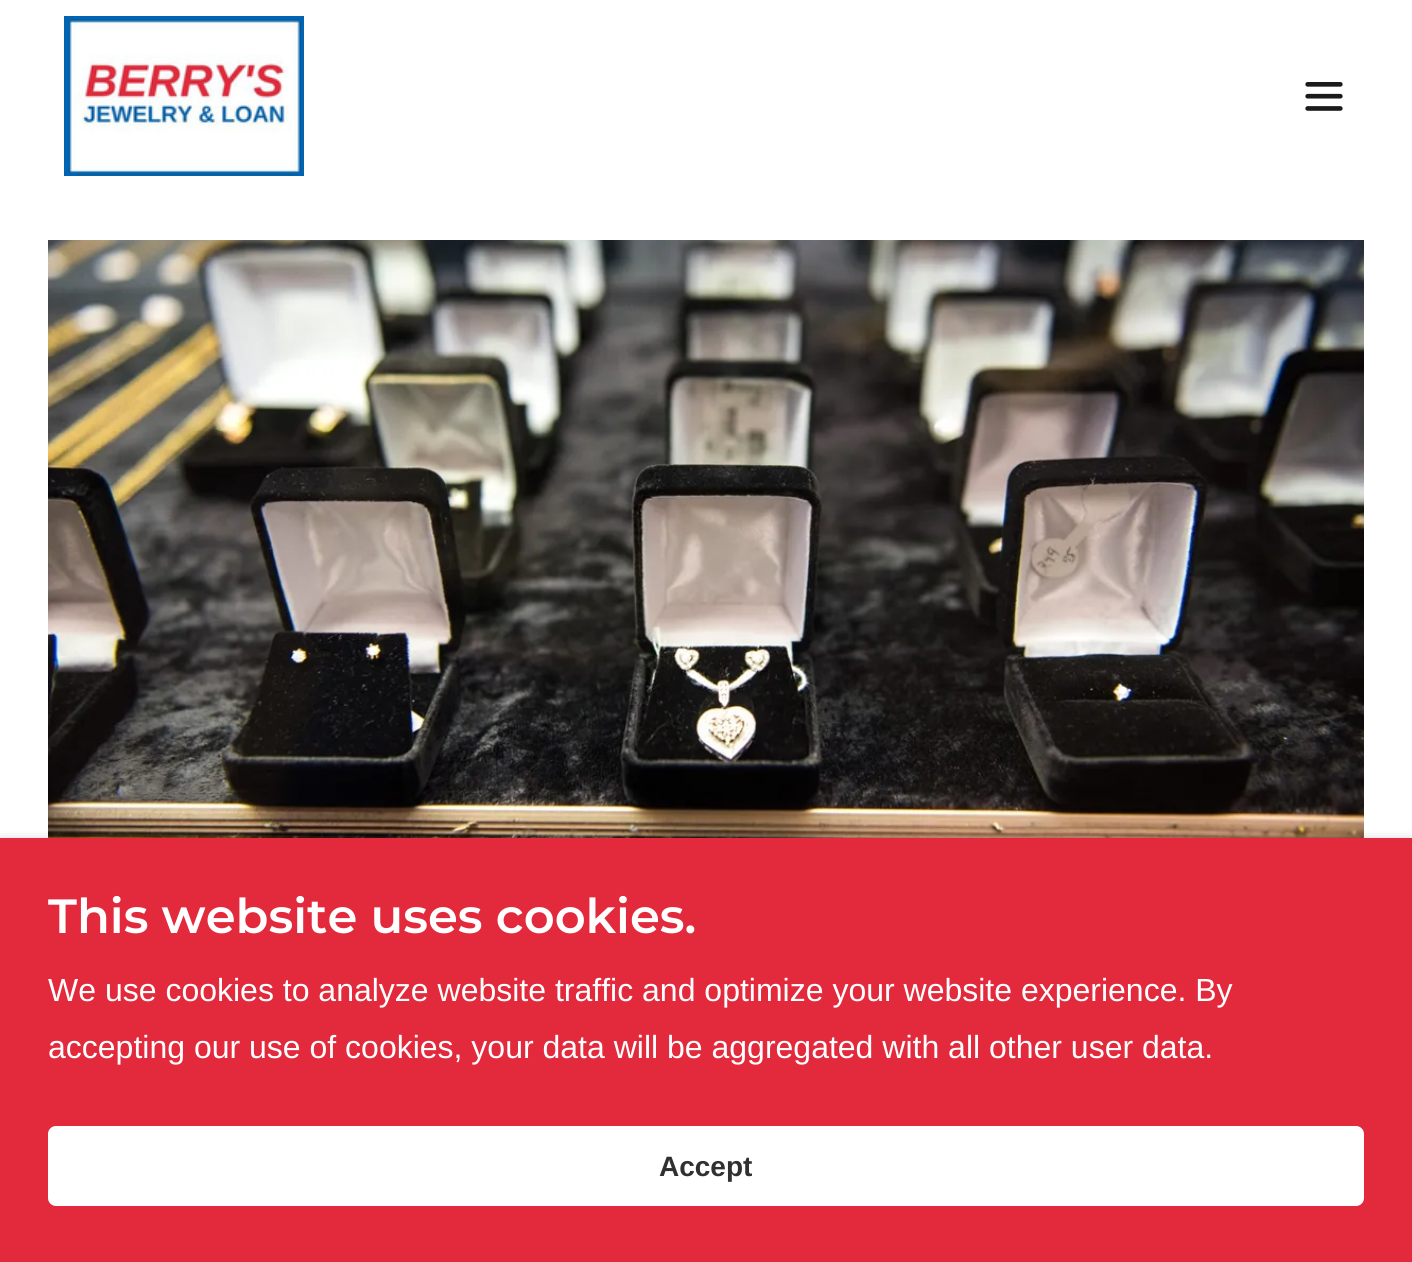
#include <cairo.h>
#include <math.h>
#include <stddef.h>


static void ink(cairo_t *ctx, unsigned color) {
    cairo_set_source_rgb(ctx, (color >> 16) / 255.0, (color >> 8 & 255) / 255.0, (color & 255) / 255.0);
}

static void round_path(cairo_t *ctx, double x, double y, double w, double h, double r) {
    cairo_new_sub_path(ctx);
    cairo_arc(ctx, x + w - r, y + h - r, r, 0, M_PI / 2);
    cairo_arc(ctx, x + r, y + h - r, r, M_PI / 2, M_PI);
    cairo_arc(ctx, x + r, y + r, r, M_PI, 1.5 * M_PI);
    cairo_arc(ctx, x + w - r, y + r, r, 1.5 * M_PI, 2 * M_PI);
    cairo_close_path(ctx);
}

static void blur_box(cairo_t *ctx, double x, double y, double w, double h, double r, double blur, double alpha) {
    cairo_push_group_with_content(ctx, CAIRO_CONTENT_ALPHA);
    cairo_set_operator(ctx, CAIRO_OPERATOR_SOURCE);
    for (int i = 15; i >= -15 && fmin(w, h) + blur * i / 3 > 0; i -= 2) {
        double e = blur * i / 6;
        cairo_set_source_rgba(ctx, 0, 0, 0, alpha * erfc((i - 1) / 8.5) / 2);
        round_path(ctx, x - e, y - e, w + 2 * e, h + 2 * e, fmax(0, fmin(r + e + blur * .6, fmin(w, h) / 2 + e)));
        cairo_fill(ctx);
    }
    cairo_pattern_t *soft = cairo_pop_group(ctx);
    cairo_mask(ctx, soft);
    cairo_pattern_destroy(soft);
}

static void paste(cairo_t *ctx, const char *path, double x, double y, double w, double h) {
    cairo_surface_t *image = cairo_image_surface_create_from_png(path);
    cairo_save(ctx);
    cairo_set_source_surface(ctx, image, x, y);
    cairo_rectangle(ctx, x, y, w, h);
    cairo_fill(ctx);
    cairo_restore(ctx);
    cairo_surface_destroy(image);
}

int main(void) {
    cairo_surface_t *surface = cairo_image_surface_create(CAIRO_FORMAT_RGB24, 1412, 1262);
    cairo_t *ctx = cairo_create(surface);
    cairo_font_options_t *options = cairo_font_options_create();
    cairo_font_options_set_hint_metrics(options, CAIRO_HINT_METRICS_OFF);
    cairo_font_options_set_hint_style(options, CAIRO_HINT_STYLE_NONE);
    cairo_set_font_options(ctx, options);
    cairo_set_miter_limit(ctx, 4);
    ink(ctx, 0xFFFFFF);
    cairo_paint(ctx);
    paste(ctx, "media/1.png", 64, 16, 240, 160);
    paste(ctx, "media/2.png", 1305, 82, 38, 29);
    paste(ctx, "media/3.png", 48, 240, 1316, 598);
    ink(ctx, 0x000000);
    blur_box(ctx, 0, 842, 1412, 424, 0, 6, 0.3);
    ink(ctx, 0xE32A3C);
    cairo_rectangle(ctx, 0, 838, 1412, 424);
    cairo_fill(ctx);
    cairo_select_font_face(ctx, "Montserrat SemiBold", CAIRO_FONT_SLANT_NORMAL, CAIRO_FONT_WEIGHT_NORMAL);
    cairo_set_font_size(ctx, 48);
    ink(ctx, 0xFFFFFF);
    cairo_move_to(ctx, 48, 933);
    cairo_show_text(ctx, "This website uses cookies.");
    cairo_select_font_face(ctx, "Liberation Sans", CAIRO_FONT_SLANT_NORMAL, CAIRO_FONT_WEIGHT_NORMAL);
    cairo_set_font_size(ctx, 32);
    cairo_move_to(ctx, 48, 1001);
    cairo_show_text(ctx, "We use cookies to analyze website traffic and optimize your website experience. By");
    cairo_move_to(ctx, 48, 1058);
    cairo_show_text(ctx, "accepting our use of cookies, your data will be aggregated with all other user data.");
    round_path(ctx, 48, 1126, 1316, 80, 8);
    cairo_fill(ctx);
    cairo_select_font_face(ctx, "Liberation Sans", CAIRO_FONT_SLANT_NORMAL, CAIRO_FONT_WEIGHT_BOLD);
    cairo_set_font_size(ctx, 28);
    ink(ctx, 0x303030);
    cairo_move_to(ctx, 659, 1176);
    cairo_show_text(ctx, "Accept");
    cairo_surface_write_to_png(surface, "image.png");
    cairo_font_options_destroy(options);
    cairo_destroy(ctx);
    cairo_surface_destroy(surface);
    return 0;
}
